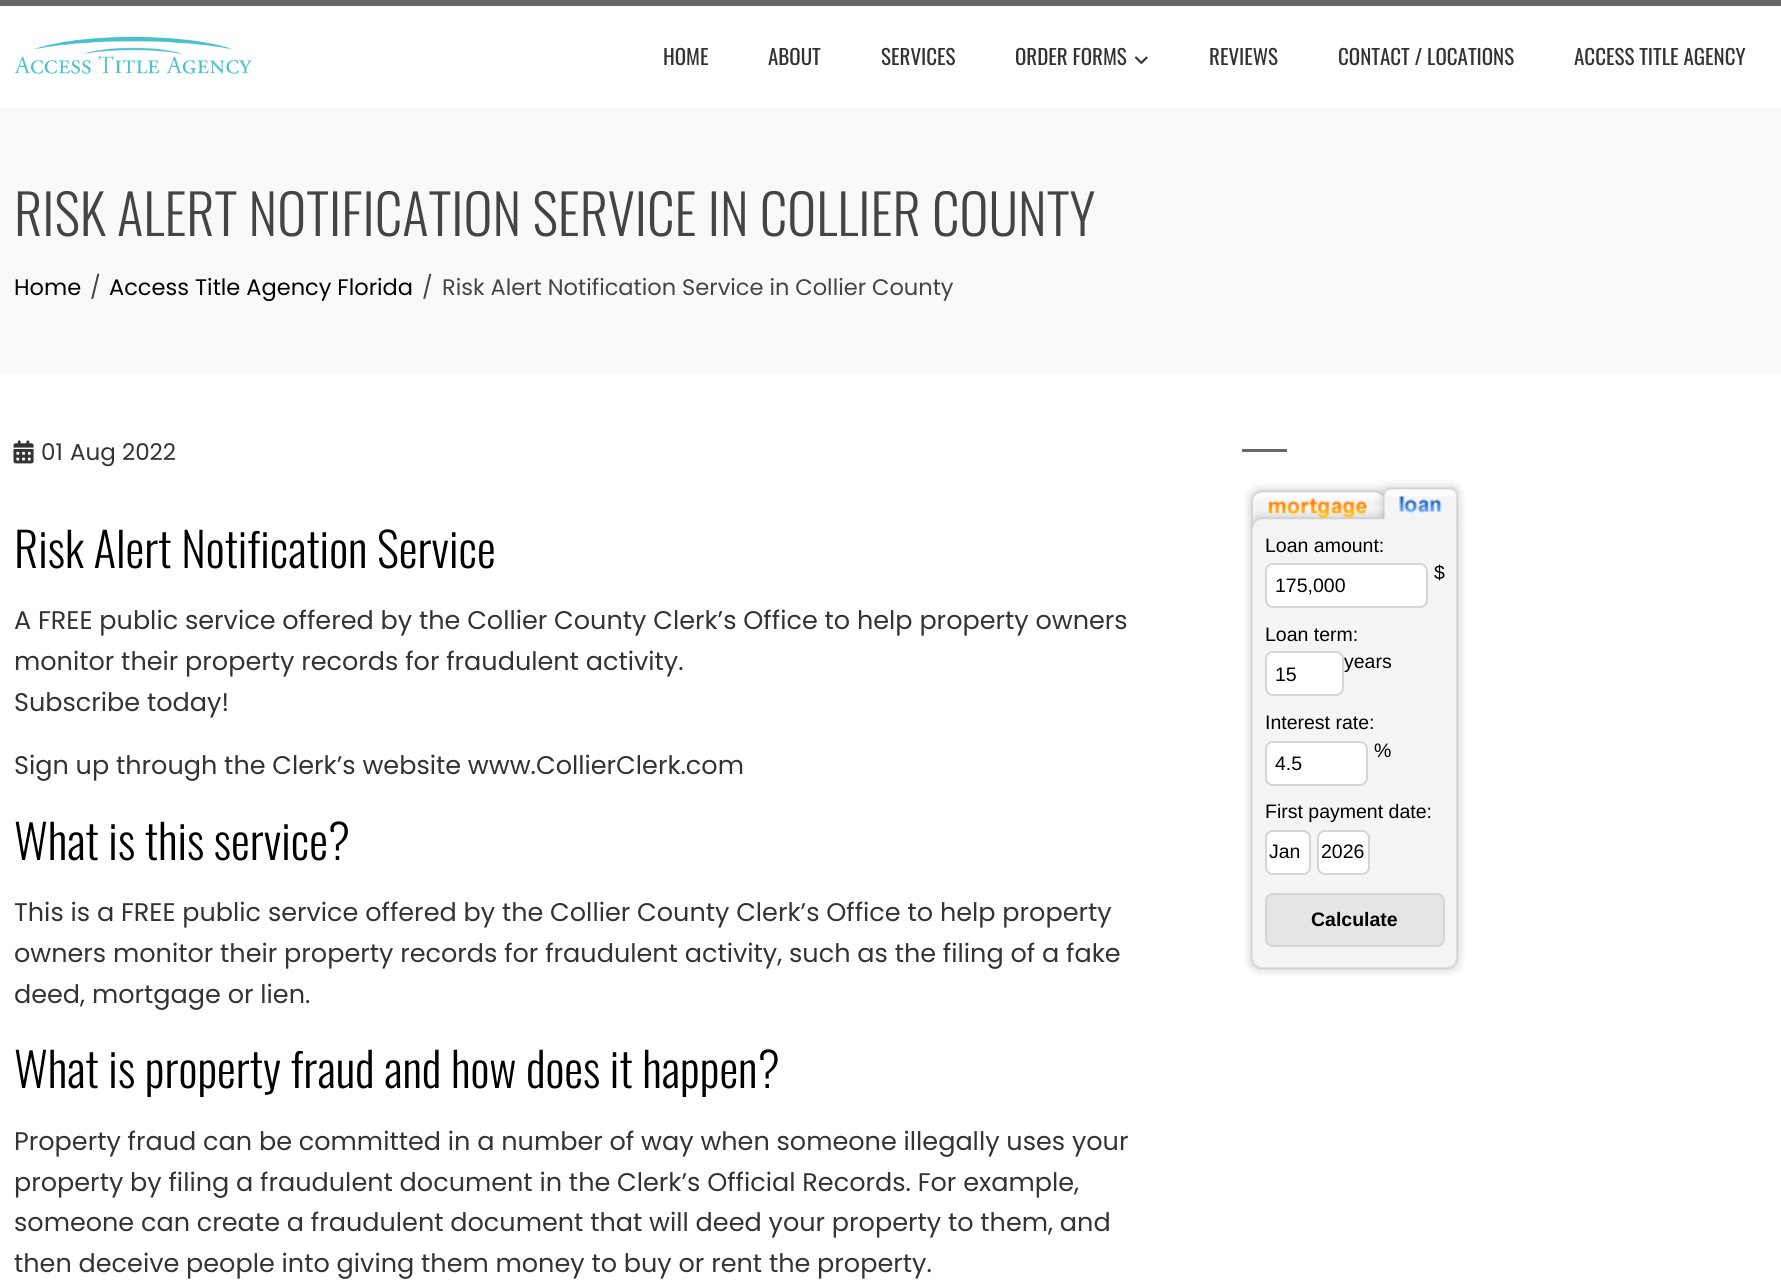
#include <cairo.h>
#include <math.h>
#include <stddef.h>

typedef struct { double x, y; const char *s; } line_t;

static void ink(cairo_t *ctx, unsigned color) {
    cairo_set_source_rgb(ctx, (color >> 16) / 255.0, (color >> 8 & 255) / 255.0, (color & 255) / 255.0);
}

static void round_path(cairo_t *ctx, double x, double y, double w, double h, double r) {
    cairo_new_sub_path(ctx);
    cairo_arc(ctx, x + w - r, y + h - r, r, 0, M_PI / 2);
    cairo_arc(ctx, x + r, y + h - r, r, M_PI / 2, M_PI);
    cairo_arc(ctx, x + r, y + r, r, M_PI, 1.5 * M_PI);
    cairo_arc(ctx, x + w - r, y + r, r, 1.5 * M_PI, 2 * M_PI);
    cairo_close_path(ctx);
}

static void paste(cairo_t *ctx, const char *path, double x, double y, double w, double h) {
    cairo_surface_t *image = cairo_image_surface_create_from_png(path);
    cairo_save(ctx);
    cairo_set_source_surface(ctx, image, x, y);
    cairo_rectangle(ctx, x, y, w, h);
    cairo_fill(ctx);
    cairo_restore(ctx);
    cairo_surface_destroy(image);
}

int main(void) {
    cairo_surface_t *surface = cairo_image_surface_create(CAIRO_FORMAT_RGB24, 1781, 1285);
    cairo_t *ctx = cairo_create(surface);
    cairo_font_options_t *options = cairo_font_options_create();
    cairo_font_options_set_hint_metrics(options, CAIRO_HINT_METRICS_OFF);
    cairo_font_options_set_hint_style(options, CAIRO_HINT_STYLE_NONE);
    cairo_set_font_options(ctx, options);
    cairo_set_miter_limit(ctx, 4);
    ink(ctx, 0xFFFFFF);
    cairo_paint(ctx);
    ink(ctx, 0x686868);
    cairo_rectangle(ctx, 0, 0, 1781, 6);
    cairo_fill(ctx);
    paste(ctx, "media/1.png", 14, 36, 238, 44);
    cairo_select_font_face(ctx, "Oswald", CAIRO_FONT_SLANT_NORMAL, CAIRO_FONT_WEIGHT_NORMAL);
    cairo_set_font_size(ctx, 21);
    ink(ctx, 0x333333);
    {
        static const line_t items[] = {
            {663, 65, "HOME"},
            {768, 65, "ABOUT"},
            {881, 65, "SERVICES"},
            {1015, 65, "ORDER FORMS"},
        };
        for (size_t i = 0; i < sizeof items / sizeof *items; i++) {
            cairo_move_to(ctx, items[i].x, items[i].y);
            cairo_show_text(ctx, items[i].s);
        }
    }
    paste(ctx, "media/2.png", 1135, 56, 13, 8);
    {
        static const line_t items[] = {
            {1209, 65, "REVIEWS"},
            {1338, 65, "CONTACT / LOCATIONS"},
            {1574, 65, "ACCESS TITLE AGENCY"},
        };
        for (size_t i = 0; i < sizeof items / sizeof *items; i++) {
            cairo_move_to(ctx, items[i].x, items[i].y);
            cairo_show_text(ctx, items[i].s);
        }
    }
    ink(ctx, 0xF9F9F9);
    cairo_rectangle(ctx, 0, 108, 1781, 266);
    cairo_fill(ctx);
    cairo_select_font_face(ctx, "Oswald Light", CAIRO_FONT_SLANT_NORMAL, CAIRO_FONT_WEIGHT_NORMAL);
    cairo_set_font_size(ctx, 55.1);
    ink(ctx, 0x444444);
    cairo_move_to(ctx, 14, 236);
    cairo_show_text(ctx, "RISK ALERT NOTIFICATION SERVICE IN COLLIER COUNTY");
    cairo_select_font_face(ctx, "Poppins", CAIRO_FONT_SLANT_NORMAL, CAIRO_FONT_WEIGHT_NORMAL);
    cairo_set_font_size(ctx, 22.5);
    ink(ctx, 0x000000);
    cairo_move_to(ctx, 14, 295);
    cairo_show_text(ctx, "Home");
    ink(ctx, 0x444444);
    cairo_move_to(ctx, 90, 295);
    cairo_show_text(ctx, "/");
    ink(ctx, 0x000000);
    cairo_move_to(ctx, 109, 295);
    cairo_show_text(ctx, "Access Title Agency Florida");
    ink(ctx, 0x444444);
    cairo_move_to(ctx, 422, 295);
    cairo_show_text(ctx, "/");
    cairo_move_to(ctx, 442, 295);
    cairo_show_text(ctx, "Risk Alert Notification Service in Collier County");
    paste(ctx, "media/3.png", 13, 440, 21, 24);
    cairo_set_font_size(ctx, 23);
    ink(ctx, 0x333333);
    cairo_move_to(ctx, 41, 460);
    cairo_show_text(ctx, "01");
    cairo_move_to(ctx, 70, 460);
    cairo_show_text(ctx, "Aug 2022");
    cairo_select_font_face(ctx, "Oswald Light", CAIRO_FONT_SLANT_NORMAL, CAIRO_FONT_WEIGHT_NORMAL);
    cairo_set_font_size(ctx, 47.25);
    ink(ctx, 0x000000);
    cairo_move_to(ctx, 14, 568);
    cairo_show_text(ctx, "Risk Alert Notification Service");
    cairo_select_font_face(ctx, "Poppins", CAIRO_FONT_SLANT_NORMAL, CAIRO_FONT_WEIGHT_NORMAL);
    cairo_set_font_size(ctx, 25.5);
    ink(ctx, 0x333333);
    {
        static const line_t items[] = {
            {14, 629, "A FREE public service offered by the Collier County Clerk’s Office to help property owners"},
            {14, 670, "monitor their property records for fraudulent activity."},
            {14, 711, "Subscribe today!"},
            {14, 774, "Sign up through the Clerk’s website www.CollierClerk.com"},
        };
        for (size_t i = 0; i < sizeof items / sizeof *items; i++) {
            cairo_move_to(ctx, items[i].x, items[i].y);
            cairo_show_text(ctx, items[i].s);
        }
    }
    cairo_select_font_face(ctx, "Oswald Light", CAIRO_FONT_SLANT_NORMAL, CAIRO_FONT_WEIGHT_NORMAL);
    cairo_set_font_size(ctx, 47.25);
    ink(ctx, 0x000000);
    cairo_move_to(ctx, 14, 860);
    cairo_show_text(ctx, "What is this service?");
    cairo_select_font_face(ctx, "Poppins", CAIRO_FONT_SLANT_NORMAL, CAIRO_FONT_WEIGHT_NORMAL);
    cairo_set_font_size(ctx, 25.5);
    ink(ctx, 0x333333);
    {
        static const line_t items[] = {
            {14, 921, "This is a FREE public service offered by the Collier County Clerk’s Office to help property"},
            {14, 962, "owners monitor their property records for fraudulent activity, such as the filing of a fake"},
            {14, 1003, "deed, mortgage or lien."},
        };
        for (size_t i = 0; i < sizeof items / sizeof *items; i++) {
            cairo_move_to(ctx, items[i].x, items[i].y);
            cairo_show_text(ctx, items[i].s);
        }
    }
    cairo_select_font_face(ctx, "Oswald Light", CAIRO_FONT_SLANT_NORMAL, CAIRO_FONT_WEIGHT_NORMAL);
    cairo_set_font_size(ctx, 47.25);
    ink(ctx, 0x000000);
    cairo_move_to(ctx, 14, 1088);
    cairo_show_text(ctx, "What is property fraud and how does it happen?");
    cairo_select_font_face(ctx, "Poppins", CAIRO_FONT_SLANT_NORMAL, CAIRO_FONT_WEIGHT_NORMAL);
    cairo_set_font_size(ctx, 25.5);
    ink(ctx, 0x333333);
    {
        static const line_t items[] = {
            {14, 1150, "Property fraud can be committed in a number of way when someone illegally uses your"},
            {14, 1191, "property by filing a fraudulent document in the Clerk’s Official Records. For example,"},
            {14, 1231, "someone can create a fraudulent document that will deed your property to them, and"},
            {14, 1272, "then deceive people into giving them money to buy or rent the property."},
        };
        for (size_t i = 0; i < sizeof items / sizeof *items; i++) {
            cairo_move_to(ctx, items[i].x, items[i].y);
            cairo_show_text(ctx, items[i].s);
        }
    }
    ink(ctx, 0x686868);
    cairo_rectangle(ctx, 1242, 449, 45, 3);
    cairo_fill(ctx);
    paste(ctx, "media/4.png", 1244, 480, 221, 48);
    paste(ctx, "media/5.png", 1244, 528, 9, 431);
    ink(ctx, 0xF5F5F5);
    cairo_rectangle(ctx, 1253, 528, 204, 431);
    cairo_fill(ctx);
    cairo_select_font_face(ctx, "Liberation Sans", CAIRO_FONT_SLANT_NORMAL, CAIRO_FONT_WEIGHT_NORMAL);
    cairo_set_font_size(ctx, 19.5);
    ink(ctx, 0x000000);
    cairo_move_to(ctx, 1265, 552);
    cairo_show_text(ctx, "Loan amount:");
    cairo_move_to(ctx, 1434, 579);
    cairo_show_text(ctx, "$");
    ink(ctx, 0xFFFFFF);
    round_path(ctx, 1266, 564, 161, 43, 7);
    cairo_fill_preserve(ctx);
    ink(ctx, 0xD5D5D5);
    cairo_stroke(ctx);
    ink(ctx, 0x000000);
    {
        static const line_t items[] = {
            {1275, 592, "175,000"},
            {1265, 641, "Loan term:"},
            {1344, 668, "years"},
        };
        for (size_t i = 0; i < sizeof items / sizeof *items; i++) {
            cairo_move_to(ctx, items[i].x, items[i].y);
            cairo_show_text(ctx, items[i].s);
        }
    }
    ink(ctx, 0xFFFFFF);
    round_path(ctx, 1266, 652, 77, 43, 7);
    cairo_fill_preserve(ctx);
    ink(ctx, 0xD5D5D5);
    cairo_stroke(ctx);
    ink(ctx, 0x000000);
    {
        static const line_t items[] = {
            {1275, 681, "15"},
            {1265, 729, "Interest rate:"},
            {1374, 757, "%"},
        };
        for (size_t i = 0; i < sizeof items / sizeof *items; i++) {
            cairo_move_to(ctx, items[i].x, items[i].y);
            cairo_show_text(ctx, items[i].s);
        }
    }
    ink(ctx, 0xFFFFFF);
    round_path(ctx, 1266, 742, 101, 43, 7);
    cairo_fill_preserve(ctx);
    ink(ctx, 0xD5D5D5);
    cairo_stroke(ctx);
    ink(ctx, 0x000000);
    cairo_move_to(ctx, 1275, 770);
    cairo_show_text(ctx, "4.5");
    cairo_move_to(ctx, 1265, 818);
    cairo_show_text(ctx, "First payment date:");
    ink(ctx, 0xFFFFFF);
    round_path(ctx, 1266, 831, 44, 43, 7);
    cairo_fill_preserve(ctx);
    ink(ctx, 0xD5D5D5);
    cairo_stroke(ctx);
    ink(ctx, 0x000000);
    cairo_move_to(ctx, 1269, 858);
    cairo_show_text(ctx, "Jan");
    ink(ctx, 0xFFFFFF);
    round_path(ctx, 1318, 831, 51, 43, 7);
    cairo_fill_preserve(ctx);
    ink(ctx, 0xD5D5D5);
    cairo_stroke(ctx);
    ink(ctx, 0x000000);
    cairo_move_to(ctx, 1321, 858);
    cairo_show_text(ctx, "2026");
    ink(ctx, 0xE5E5E5);
    round_path(ctx, 1266, 894, 178, 52, 7);
    cairo_fill_preserve(ctx);
    ink(ctx, 0xD5D5D5);
    cairo_stroke(ctx);
    cairo_select_font_face(ctx, "Liberation Sans", CAIRO_FONT_SLANT_NORMAL, CAIRO_FONT_WEIGHT_BOLD);
    ink(ctx, 0x000000);
    cairo_move_to(ctx, 1311, 926);
    cairo_show_text(ctx, "Calculate");
    paste(ctx, "media/6.png", 1456, 528, 9, 431);
    paste(ctx, "media/7.png", 1244, 958, 221, 18);
    cairo_surface_write_to_png(surface, "image.png");
    cairo_font_options_destroy(options);
    cairo_destroy(ctx);
    cairo_surface_destroy(surface);
    return 0;
}
